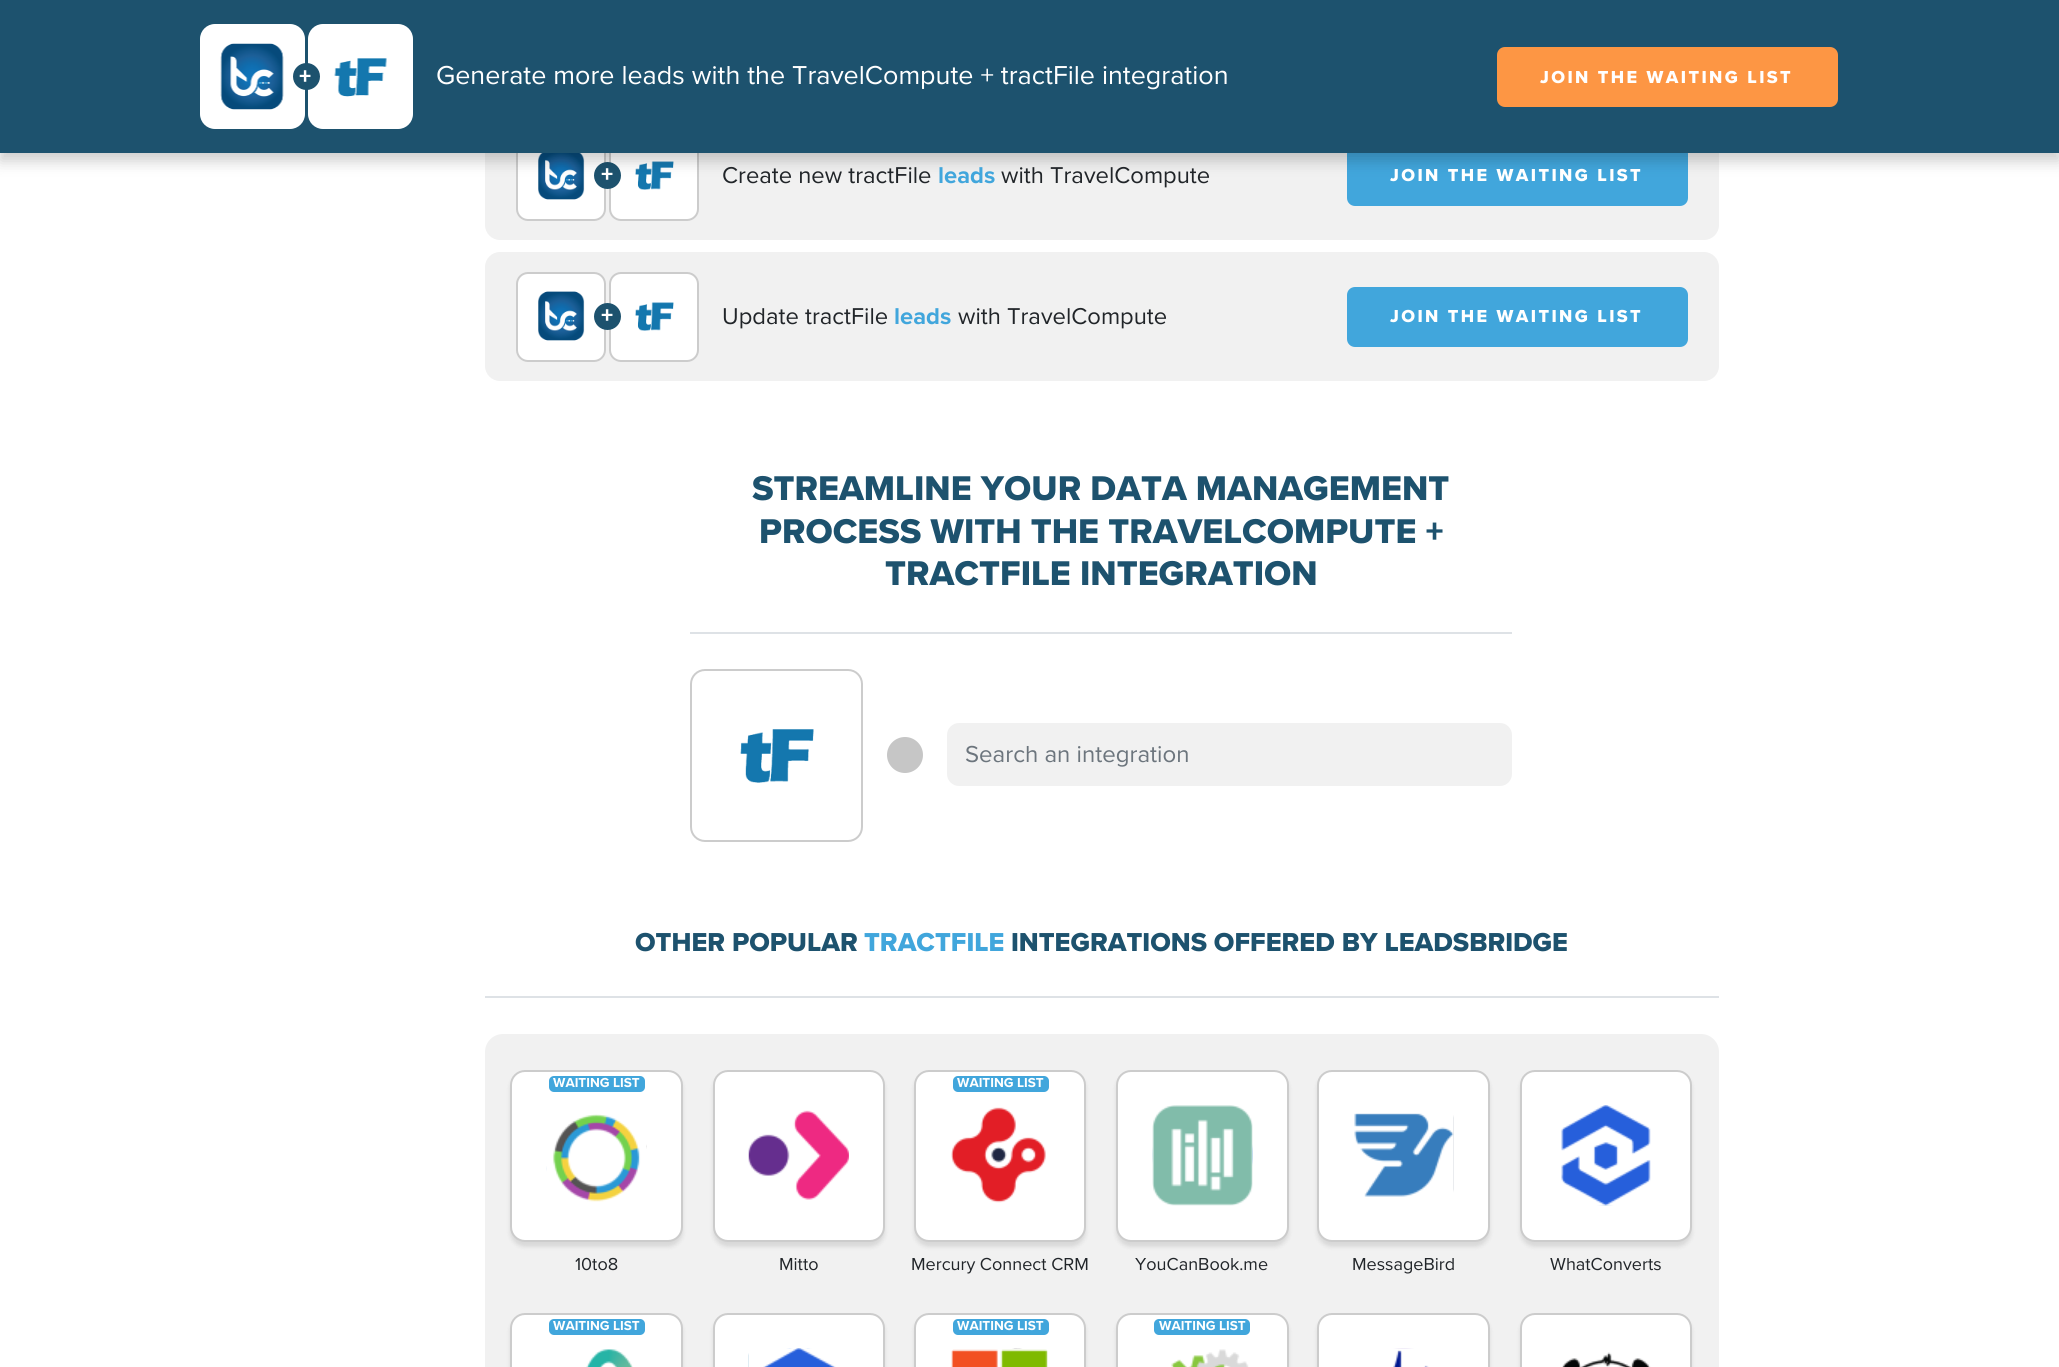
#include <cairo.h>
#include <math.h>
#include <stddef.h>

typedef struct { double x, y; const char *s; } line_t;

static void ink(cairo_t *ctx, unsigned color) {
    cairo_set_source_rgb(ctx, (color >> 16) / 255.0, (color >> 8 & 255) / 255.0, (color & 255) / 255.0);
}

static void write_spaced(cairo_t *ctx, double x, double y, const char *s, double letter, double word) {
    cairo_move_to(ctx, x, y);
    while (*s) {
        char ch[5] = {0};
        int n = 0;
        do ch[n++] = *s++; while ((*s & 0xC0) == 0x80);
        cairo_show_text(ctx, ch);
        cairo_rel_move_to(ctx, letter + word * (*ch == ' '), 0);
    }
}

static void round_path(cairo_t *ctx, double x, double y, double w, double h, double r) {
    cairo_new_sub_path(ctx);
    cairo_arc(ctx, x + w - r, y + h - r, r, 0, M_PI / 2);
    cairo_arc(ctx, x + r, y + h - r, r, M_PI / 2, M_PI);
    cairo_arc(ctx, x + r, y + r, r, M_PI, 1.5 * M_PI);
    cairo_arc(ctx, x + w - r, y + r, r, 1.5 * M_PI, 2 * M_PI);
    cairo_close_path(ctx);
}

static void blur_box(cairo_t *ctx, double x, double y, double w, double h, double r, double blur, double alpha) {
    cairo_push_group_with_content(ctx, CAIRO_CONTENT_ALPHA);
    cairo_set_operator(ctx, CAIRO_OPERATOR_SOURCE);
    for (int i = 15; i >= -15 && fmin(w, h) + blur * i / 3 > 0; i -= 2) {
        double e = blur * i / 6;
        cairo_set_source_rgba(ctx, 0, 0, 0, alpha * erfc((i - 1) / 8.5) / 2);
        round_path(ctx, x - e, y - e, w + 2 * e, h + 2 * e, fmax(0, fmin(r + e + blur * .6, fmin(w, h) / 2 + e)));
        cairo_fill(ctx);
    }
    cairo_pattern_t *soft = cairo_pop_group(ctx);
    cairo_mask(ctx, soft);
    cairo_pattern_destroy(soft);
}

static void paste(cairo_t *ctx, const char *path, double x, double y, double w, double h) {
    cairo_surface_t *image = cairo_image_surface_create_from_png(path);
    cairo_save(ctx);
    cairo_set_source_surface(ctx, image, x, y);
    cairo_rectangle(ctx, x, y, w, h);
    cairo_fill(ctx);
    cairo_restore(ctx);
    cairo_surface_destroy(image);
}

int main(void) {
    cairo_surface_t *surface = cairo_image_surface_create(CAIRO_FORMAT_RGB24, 2059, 1367);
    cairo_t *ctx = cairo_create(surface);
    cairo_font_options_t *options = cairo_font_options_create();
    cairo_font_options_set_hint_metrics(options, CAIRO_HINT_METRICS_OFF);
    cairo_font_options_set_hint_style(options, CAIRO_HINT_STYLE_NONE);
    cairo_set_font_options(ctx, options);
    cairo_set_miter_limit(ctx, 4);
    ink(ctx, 0xFFFFFF);
    cairo_paint(ctx);
    ink(ctx, 0xF1F1F1);
    round_path(ctx, 485, 111, 1234, 129, 15);
    cairo_fill(ctx);
    ink(ctx, 0xFFFFFF);
    round_path(ctx, 517, 132, 88, 88, 11);
    cairo_fill_preserve(ctx);
    ink(ctx, 0xCCCCCC);
    cairo_stroke(ctx);
    paste(ctx, "media/3.png", 538, 153, 47, 47);
    ink(ctx, 0xFFFFFF);
    round_path(ctx, 610, 132, 88, 88, 11);
    cairo_fill_preserve(ctx);
    ink(ctx, 0xCCCCCC);
    cairo_stroke(ctx);
    ink(ctx, 0x1D526E);
    cairo_arc(ctx, 607.5, 175.5, 13.5, 0, 2 * M_PI);
    cairo_fill(ctx);
    paste(ctx, "media/4.png", 635, 161, 39, 29);
    ink(ctx, 0x41A6DC);
    round_path(ctx, 1348, 147, 339, 58, 7);
    cairo_fill_preserve(ctx);
    cairo_stroke(ctx);
    ink(ctx, 0x000000);
    blur_box(ctx, 0, 8, 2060, 153, 0, 7.5, 0.2);
    ink(ctx, 0x1D526E);
    cairo_rectangle(ctx, 0, 0, 2059, 153);
    cairo_fill(ctx);
    ink(ctx, 0xFFFFFF);
    round_path(ctx, 200, 24, 105, 105, 15);
    cairo_fill(ctx);
    paste(ctx, "media/1.png", 220, 43, 64, 67);
    round_path(ctx, 308, 24, 105, 105, 15);
    cairo_fill(ctx);
    paste(ctx, "media/2.png", 334, 58, 53, 39);
    ink(ctx, 0x1D526E);
    cairo_arc(ctx, 306.5, 76.5, 13.5, 0, 2 * M_PI);
    cairo_fill(ctx);
    cairo_select_font_face(ctx, "Proxima Nova ExtraBold", CAIRO_FONT_SLANT_NORMAL, CAIRO_FONT_WEIGHT_NORMAL);
    cairo_set_font_size(ctx, 24);
    ink(ctx, 0xFFFFFF);
    cairo_move_to(ctx, 299, 84);
    cairo_show_text(ctx, "+");
    cairo_select_font_face(ctx, "Proxima Nova", CAIRO_FONT_SLANT_NORMAL, CAIRO_FONT_WEIGHT_NORMAL);
    cairo_set_font_size(ctx, 26.9);
    cairo_move_to(ctx, 436, 84);
    cairo_show_text(ctx, "Generate more leads with the TravelCompute + tractFile integration");
    ink(ctx, 0xFD9644);
    round_path(ctx, 1498, 48, 339, 58, 7);
    cairo_fill_preserve(ctx);
    cairo_stroke(ctx);
    cairo_select_font_face(ctx, "Proxima Nova ExtraBold", CAIRO_FONT_SLANT_NORMAL, CAIRO_FONT_WEIGHT_NORMAL);
    cairo_set_font_size(ctx, 18);
    ink(ctx, 0xFFFFFF);
    write_spaced(ctx, 1540, 83, "JOIN THE WAITING LIST", 2.4, 0);
    cairo_set_font_size(ctx, 24);
    cairo_move_to(ctx, 601, 182);
    cairo_show_text(ctx, "+");
    cairo_select_font_face(ctx, "Proxima Nova", CAIRO_FONT_SLANT_NORMAL, CAIRO_FONT_WEIGHT_NORMAL);
    cairo_set_font_size(ctx, 23.75);
    ink(ctx, 0x212529);
    cairo_move_to(ctx, 722, 183);
    cairo_show_text(ctx, "Create new tractFile");
    cairo_select_font_face(ctx, "Proxima Nova", CAIRO_FONT_SLANT_NORMAL, CAIRO_FONT_WEIGHT_BOLD);
    ink(ctx, 0x41A6DC);
    cairo_move_to(ctx, 938, 183);
    cairo_show_text(ctx, "leads");
    cairo_select_font_face(ctx, "Proxima Nova", CAIRO_FONT_SLANT_NORMAL, CAIRO_FONT_WEIGHT_NORMAL);
    ink(ctx, 0x212529);
    cairo_move_to(ctx, 1001, 183);
    cairo_show_text(ctx, "with TravelCompute");
    cairo_select_font_face(ctx, "Proxima Nova ExtraBold", CAIRO_FONT_SLANT_NORMAL, CAIRO_FONT_WEIGHT_NORMAL);
    cairo_set_font_size(ctx, 18);
    ink(ctx, 0xFFFFFF);
    write_spaced(ctx, 1390, 181, "JOIN THE WAITING LIST", 2.4, 0);
    ink(ctx, 0xF1F1F1);
    round_path(ctx, 485, 252, 1234, 129, 15);
    cairo_fill(ctx);
    ink(ctx, 0xFFFFFF);
    round_path(ctx, 517, 273, 88, 88, 11);
    cairo_fill_preserve(ctx);
    ink(ctx, 0xCCCCCC);
    cairo_stroke(ctx);
    paste(ctx, "media/5.png", 538, 291, 47, 50);
    ink(ctx, 0xFFFFFF);
    round_path(ctx, 610, 273, 88, 88, 11);
    cairo_fill_preserve(ctx);
    ink(ctx, 0xCCCCCC);
    cairo_stroke(ctx);
    ink(ctx, 0x1D526E);
    cairo_arc(ctx, 607.5, 316.5, 13.5, 0, 2 * M_PI);
    cairo_fill(ctx);
    cairo_set_font_size(ctx, 24);
    ink(ctx, 0xFFFFFF);
    cairo_move_to(ctx, 601, 323);
    cairo_show_text(ctx, "+");
    paste(ctx, "media/4.png", 635, 302, 39, 29);
    cairo_select_font_face(ctx, "Proxima Nova", CAIRO_FONT_SLANT_NORMAL, CAIRO_FONT_WEIGHT_NORMAL);
    cairo_set_font_size(ctx, 23.75);
    ink(ctx, 0x212529);
    cairo_move_to(ctx, 722, 324);
    cairo_show_text(ctx, "Update tractFile");
    cairo_select_font_face(ctx, "Proxima Nova", CAIRO_FONT_SLANT_NORMAL, CAIRO_FONT_WEIGHT_BOLD);
    ink(ctx, 0x41A6DC);
    cairo_move_to(ctx, 894, 324);
    cairo_show_text(ctx, "leads");
    cairo_select_font_face(ctx, "Proxima Nova", CAIRO_FONT_SLANT_NORMAL, CAIRO_FONT_WEIGHT_NORMAL);
    ink(ctx, 0x212529);
    cairo_move_to(ctx, 958, 324);
    cairo_show_text(ctx, "with TravelCompute");
    ink(ctx, 0x41A6DC);
    round_path(ctx, 1348, 288, 339, 58, 7);
    cairo_fill_preserve(ctx);
    cairo_stroke(ctx);
    cairo_select_font_face(ctx, "Proxima Nova ExtraBold", CAIRO_FONT_SLANT_NORMAL, CAIRO_FONT_WEIGHT_NORMAL);
    cairo_set_font_size(ctx, 18);
    ink(ctx, 0xFFFFFF);
    write_spaced(ctx, 1390, 322, "JOIN THE WAITING LIST", 2.4, 0);
    ink(ctx, 0xDEE2E6);
    cairo_rectangle(ctx, 690, 632, 822, 2);
    cairo_fill(ctx);
    cairo_set_font_size(ctx, 35.6);
    ink(ctx, 0x1D526E);
    {
        static const line_t items[] = {
            {752, 500, "STREAMLINE YOUR DATA MANAGEMENT"},
            {759, 543, "PROCESS WITH THE TRAVELCOMPUTE +"},
            {885, 585, "TRACTFILE INTEGRATION"},
        };
        for (size_t i = 0; i < sizeof items / sizeof *items; i++) {
            cairo_move_to(ctx, items[i].x, items[i].y);
            cairo_show_text(ctx, items[i].s);
        }
    }
    round_path(ctx, 691, 670, 171, 171, 14);
    ink(ctx, 0xCCCCCC);
    cairo_stroke(ctx);
    paste(ctx, "media/6.png", 740, 729, 74, 54);
    ink(ctx, 0xC6C6C6);
    cairo_arc(ctx, 905, 755, 18, 0, 2 * M_PI);
    cairo_fill(ctx);
    ink(ctx, 0xF1F1F1);
    round_path(ctx, 948, 724, 563, 61, 11);
    cairo_fill_preserve(ctx);
    cairo_stroke(ctx);
    cairo_select_font_face(ctx, "Proxima Nova", CAIRO_FONT_SLANT_NORMAL, CAIRO_FONT_WEIGHT_NORMAL);
    cairo_set_font_size(ctx, 24);
    ink(ctx, 0x6C757D);
    cairo_move_to(ctx, 965, 762);
    cairo_show_text(ctx, "Search an integration");
    ink(ctx, 0xDEE2E6);
    cairo_rectangle(ctx, 485, 996, 1234, 2);
    cairo_fill(ctx);
    cairo_select_font_face(ctx, "Proxima Nova ExtraBold", CAIRO_FONT_SLANT_NORMAL, CAIRO_FONT_WEIGHT_NORMAL);
    cairo_set_font_size(ctx, 26.9);
    ink(ctx, 0x1D526E);
    cairo_move_to(ctx, 635, 951);
    cairo_show_text(ctx, "OTHER POPULAR");
    ink(ctx, 0x41A6DC);
    cairo_move_to(ctx, 864, 951);
    cairo_show_text(ctx, "TRACTFILE");
    ink(ctx, 0x1D526E);
    cairo_move_to(ctx, 1011, 951);
    cairo_show_text(ctx, "INTEGRATIONS OFFERED BY LEADSBRIDGE");
    ink(ctx, 0xF1F1F1);
    round_path(ctx, 485, 1034, 1234, 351, 18);
    cairo_fill(ctx);
    ink(ctx, 0x000000);
    blur_box(ctx, 510, 1074, 173, 173, 15, 2, 0.1);
    ink(ctx, 0xFFFFFF);
    round_path(ctx, 511, 1071, 171, 170, 14);
    cairo_fill_preserve(ctx);
    ink(ctx, 0xCCCCCC);
    cairo_stroke(ctx);
    paste(ctx, "media/7.png", 546, 1114, 101, 88);
    ink(ctx, 0x41A6DC);
    round_path(ctx, 549, 1076, 96, 16, 5);
    cairo_fill(ctx);
    cairo_select_font_face(ctx, "Proxima Nova", CAIRO_FONT_SLANT_NORMAL, CAIRO_FONT_WEIGHT_BOLD);
    cairo_set_font_size(ctx, 13.5);
    ink(ctx, 0xFFFFFF);
    cairo_move_to(ctx, 553, 1087);
    cairo_show_text(ctx, "WAITING LIST");
    cairo_select_font_face(ctx, "Proxima Nova", CAIRO_FONT_SLANT_NORMAL, CAIRO_FONT_WEIGHT_NORMAL);
    cairo_set_font_size(ctx, 18);
    ink(ctx, 0x212529);
    cairo_move_to(ctx, 575, 1270);
    cairo_show_text(ctx, "10to8");
    ink(ctx, 0x000000);
    blur_box(ctx, 713, 1074, 172, 173, 15, 2, 0.1);
    ink(ctx, 0xFFFFFF);
    round_path(ctx, 714, 1071, 170, 170, 14);
    cairo_fill_preserve(ctx);
    ink(ctx, 0xCCCCCC);
    cairo_stroke(ctx);
    paste(ctx, "media/8.png", 748, 1110, 101, 90);
    ink(ctx, 0x212529);
    cairo_move_to(ctx, 779, 1270);
    cairo_show_text(ctx, "Mitto");
    ink(ctx, 0x000000);
    blur_box(ctx, 914, 1074, 172, 173, 15, 2, 0.1);
    ink(ctx, 0xFFFFFF);
    round_path(ctx, 915, 1071, 170, 170, 14);
    cairo_fill_preserve(ctx);
    ink(ctx, 0xCCCCCC);
    cairo_stroke(ctx);
    paste(ctx, "media/9.png", 951, 1107, 95, 96);
    ink(ctx, 0x41A6DC);
    round_path(ctx, 953, 1076, 96, 16, 5);
    cairo_fill(ctx);
    cairo_select_font_face(ctx, "Proxima Nova", CAIRO_FONT_SLANT_NORMAL, CAIRO_FONT_WEIGHT_BOLD);
    cairo_set_font_size(ctx, 13.5);
    ink(ctx, 0xFFFFFF);
    cairo_move_to(ctx, 957, 1087);
    cairo_show_text(ctx, "WAITING LIST");
    cairo_select_font_face(ctx, "Proxima Nova", CAIRO_FONT_SLANT_NORMAL, CAIRO_FONT_WEIGHT_NORMAL);
    cairo_set_font_size(ctx, 18);
    ink(ctx, 0x212529);
    cairo_move_to(ctx, 911, 1270);
    cairo_show_text(ctx, "Mercury Connect CRM");
    ink(ctx, 0x000000);
    blur_box(ctx, 1116, 1074, 173, 173, 15, 2, 0.1);
    ink(ctx, 0xFFFFFF);
    round_path(ctx, 1117, 1071, 171, 170, 14);
    cairo_fill_preserve(ctx);
    ink(ctx, 0xCCCCCC);
    cairo_stroke(ctx);
    paste(ctx, "media/10.png", 1152, 1105, 101, 101);
    ink(ctx, 0x212529);
    cairo_move_to(ctx, 1135, 1270);
    cairo_show_text(ctx, "YouCanBook.me");
    ink(ctx, 0x000000);
    blur_box(ctx, 1317, 1074, 173, 173, 15, 2, 0.1);
    ink(ctx, 0xFFFFFF);
    round_path(ctx, 1318, 1071, 171, 170, 14);
    cairo_fill_preserve(ctx);
    ink(ctx, 0xCCCCCC);
    cairo_stroke(ctx);
    paste(ctx, "media/11.png", 1354, 1113, 100, 84);
    ink(ctx, 0x212529);
    cairo_move_to(ctx, 1352, 1270);
    cairo_show_text(ctx, "MessageBird");
    ink(ctx, 0x000000);
    blur_box(ctx, 1520, 1074, 172, 173, 15, 2, 0.1);
    ink(ctx, 0xFFFFFF);
    round_path(ctx, 1521, 1071, 170, 170, 14);
    cairo_fill_preserve(ctx);
    ink(ctx, 0xCCCCCC);
    cairo_stroke(ctx);
    paste(ctx, "media/12.png", 1561, 1105, 90, 101);
    ink(ctx, 0x212529);
    cairo_move_to(ctx, 1550, 1270);
    cairo_show_text(ctx, "WhatConverts");
    ink(ctx, 0x000000);
    blur_box(ctx, 510, 1317, 173, 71, 15, 2, 0.1);
    ink(ctx, 0xFFFFFF);
    round_path(ctx, 511, 1314, 171, 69, 14);
    cairo_fill_preserve(ctx);
    ink(ctx, 0xCCCCCC);
    cairo_stroke(ctx);
    paste(ctx, "media/13.png", 586, 1349, 47, 18);
    ink(ctx, 0x41A6DC);
    round_path(ctx, 549, 1319, 96, 16, 5);
    cairo_fill(ctx);
    cairo_select_font_face(ctx, "Proxima Nova", CAIRO_FONT_SLANT_NORMAL, CAIRO_FONT_WEIGHT_BOLD);
    cairo_set_font_size(ctx, 13.5);
    ink(ctx, 0xFFFFFF);
    cairo_move_to(ctx, 553, 1330);
    cairo_show_text(ctx, "WAITING LIST");
    ink(ctx, 0x000000);
    blur_box(ctx, 713, 1317, 172, 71, 15, 2, 0.1);
    ink(ctx, 0xFFFFFF);
    round_path(ctx, 714, 1314, 170, 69, 14);
    cairo_fill_preserve(ctx);
    ink(ctx, 0xCCCCCC);
    cairo_stroke(ctx);
    paste(ctx, "media/14.png", 748, 1348, 88, 19);
    ink(ctx, 0x000000);
    blur_box(ctx, 914, 1317, 172, 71, 15, 2, 0.1);
    ink(ctx, 0xFFFFFF);
    round_path(ctx, 915, 1314, 170, 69, 14);
    cairo_fill_preserve(ctx);
    ink(ctx, 0xCCCCCC);
    cairo_stroke(ctx);
    paste(ctx, "media/15.png", 951, 1348, 97, 19);
    ink(ctx, 0x41A6DC);
    round_path(ctx, 953, 1319, 96, 16, 5);
    cairo_fill(ctx);
    ink(ctx, 0xFFFFFF);
    cairo_move_to(ctx, 957, 1330);
    cairo_show_text(ctx, "WAITING LIST");
    ink(ctx, 0x000000);
    blur_box(ctx, 1116, 1317, 173, 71, 15, 2, 0.1);
    ink(ctx, 0xFFFFFF);
    round_path(ctx, 1117, 1314, 171, 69, 14);
    cairo_fill_preserve(ctx);
    ink(ctx, 0xCCCCCC);
    cairo_stroke(ctx);
    paste(ctx, "media/16.png", 1171, 1349, 78, 18);
    ink(ctx, 0x41A6DC);
    round_path(ctx, 1154, 1319, 96, 16, 5);
    cairo_fill(ctx);
    ink(ctx, 0xFFFFFF);
    cairo_move_to(ctx, 1159, 1330);
    cairo_show_text(ctx, "WAITING LIST");
    ink(ctx, 0x000000);
    blur_box(ctx, 1317, 1317, 173, 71, 15, 2, 0.1);
    ink(ctx, 0xFFFFFF);
    round_path(ctx, 1318, 1314, 171, 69, 14);
    cairo_fill_preserve(ctx);
    ink(ctx, 0xCCCCCC);
    cairo_stroke(ctx);
    paste(ctx, "media/17.png", 1393, 1348, 36, 19);
    ink(ctx, 0x000000);
    blur_box(ctx, 1520, 1317, 172, 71, 15, 2, 0.1);
    ink(ctx, 0xFFFFFF);
    round_path(ctx, 1521, 1314, 170, 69, 14);
    cairo_fill_preserve(ctx);
    ink(ctx, 0xCCCCCC);
    cairo_stroke(ctx);
    paste(ctx, "media/18.png", 1562, 1352, 89, 15);
    cairo_surface_write_to_png(surface, "image.png");
    cairo_font_options_destroy(options);
    cairo_destroy(ctx);
    cairo_surface_destroy(surface);
    return 0;
}
